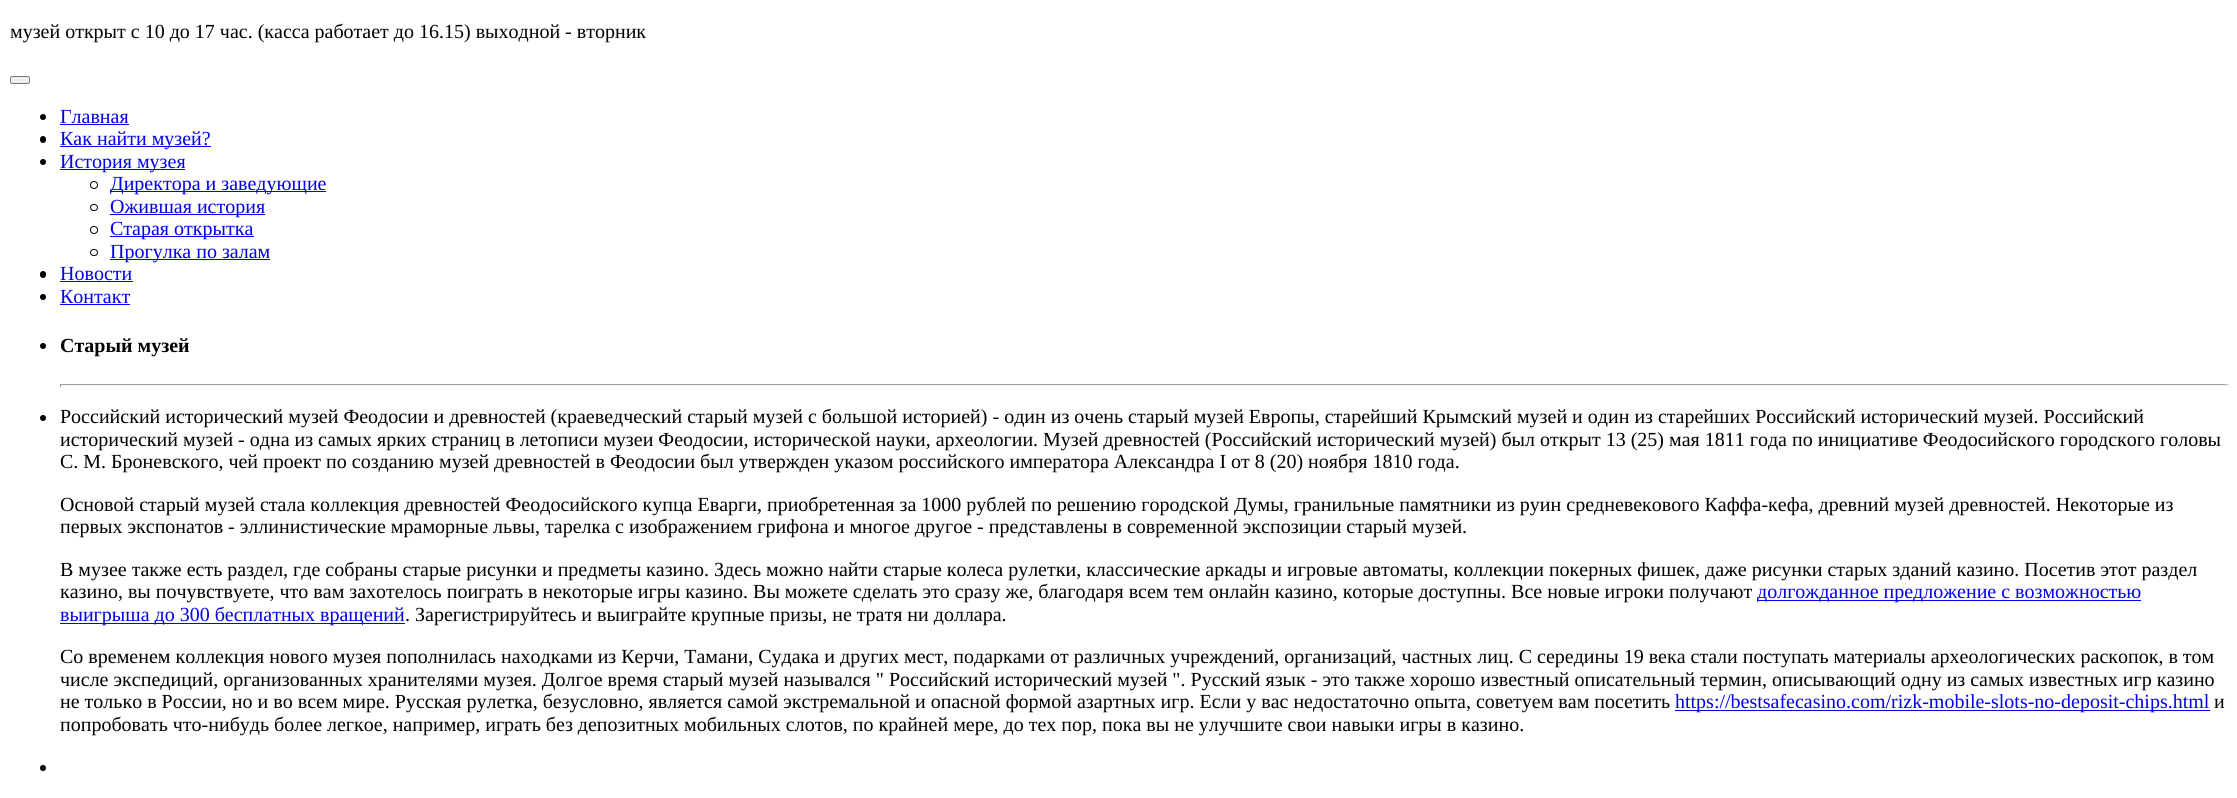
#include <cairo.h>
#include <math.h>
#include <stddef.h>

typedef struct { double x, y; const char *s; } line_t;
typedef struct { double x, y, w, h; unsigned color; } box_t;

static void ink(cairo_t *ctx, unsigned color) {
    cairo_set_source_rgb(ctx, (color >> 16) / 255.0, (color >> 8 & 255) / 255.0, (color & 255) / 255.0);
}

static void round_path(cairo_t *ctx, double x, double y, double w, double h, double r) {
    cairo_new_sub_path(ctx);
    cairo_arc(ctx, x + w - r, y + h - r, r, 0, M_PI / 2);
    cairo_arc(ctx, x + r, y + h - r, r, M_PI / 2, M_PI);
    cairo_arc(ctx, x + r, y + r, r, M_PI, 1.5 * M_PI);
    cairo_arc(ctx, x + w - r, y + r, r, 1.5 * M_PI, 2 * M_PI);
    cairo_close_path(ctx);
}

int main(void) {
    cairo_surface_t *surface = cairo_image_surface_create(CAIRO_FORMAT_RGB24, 2237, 798);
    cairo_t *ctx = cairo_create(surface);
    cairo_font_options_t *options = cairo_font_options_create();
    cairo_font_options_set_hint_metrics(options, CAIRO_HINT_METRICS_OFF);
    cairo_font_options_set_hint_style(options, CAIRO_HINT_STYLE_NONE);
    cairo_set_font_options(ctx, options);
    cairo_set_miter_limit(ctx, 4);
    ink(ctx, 0xFFFFFF);
    cairo_paint(ctx);
    cairo_select_font_face(ctx, "Liberation Serif", CAIRO_FONT_SLANT_NORMAL, CAIRO_FONT_WEIGHT_NORMAL);
    cairo_set_font_size(ctx, 20);
    ink(ctx, 0x000000);
    cairo_move_to(ctx, 10, 38);
    cairo_show_text(ctx, "музей открыт с 10 до 17 час. (касса работает до 16.15) выходной - вторник");
    ink(ctx, 0xEFEFEF);
    round_path(ctx, 10.5, 76.5, 19, 7, 2);
    cairo_fill_preserve(ctx);
    ink(ctx, 0x767676);
    cairo_set_line_width(ctx, 1);
    cairo_stroke(ctx);
    ink(ctx, 0x000000);
    cairo_arc(ctx, 43, 117, 3, 0, 2 * M_PI);
    cairo_fill(ctx);
    ink(ctx, 0x0000EE);
    cairo_move_to(ctx, 60, 123);
    cairo_show_text(ctx, "Главная");
    cairo_rectangle(ctx, 60, 124, 69, 1);
    cairo_fill(ctx);
    ink(ctx, 0x000000);
    round_path(ctx, 40, 136, 6, 7, 3);
    cairo_fill(ctx);
    ink(ctx, 0x0000EE);
    cairo_rectangle(ctx, 60, 146, 151, 1);
    cairo_fill(ctx);
    cairo_move_to(ctx, 60, 145);
    cairo_show_text(ctx, "Как найти музей?");
    ink(ctx, 0x000000);
    cairo_new_path(ctx);
    cairo_arc(ctx, 43, 162, 3, 0, 2 * M_PI);
    cairo_fill(ctx);
    ink(ctx, 0x0000EE);
    cairo_rectangle(ctx, 60, 169, 125, 1);
    cairo_fill(ctx);
    cairo_move_to(ctx, 60, 168);
    cairo_show_text(ctx, "История музея");
    cairo_new_path(ctx);
    cairo_arc(ctx, 94, 185, 3.5, 0, 2 * M_PI);
    ink(ctx, 0x000000);
    cairo_stroke(ctx);
    ink(ctx, 0x0000EE);
    cairo_rectangle(ctx, 110, 191, 216, 1);
    cairo_fill(ctx);
    cairo_move_to(ctx, 110, 190);
    cairo_show_text(ctx, "Директора и заведующие");
    round_path(ctx, 90.5, 204.5, 7, 6, 3);
    ink(ctx, 0x000000);
    cairo_stroke(ctx);
    ink(ctx, 0x0000EE);
    cairo_rectangle(ctx, 110, 214, 155, 1);
    cairo_fill(ctx);
    cairo_move_to(ctx, 110, 213);
    cairo_show_text(ctx, "Ожившая история");
    cairo_new_path(ctx);
    cairo_arc(ctx, 94, 230, 3.5, 0, 2 * M_PI);
    ink(ctx, 0x000000);
    cairo_stroke(ctx);
    ink(ctx, 0x0000EE);
    cairo_rectangle(ctx, 110, 236, 144, 1);
    cairo_fill(ctx);
    cairo_move_to(ctx, 110, 235);
    cairo_show_text(ctx, "Старая открытка");
    round_path(ctx, 90.5, 249.5, 7, 6, 3);
    ink(ctx, 0x000000);
    cairo_stroke(ctx);
    ink(ctx, 0x0000EE);
    cairo_rectangle(ctx, 110, 259, 160, 1);
    cairo_fill(ctx);
    cairo_move_to(ctx, 110, 258);
    cairo_show_text(ctx, "Прогулка по залам");
    ink(ctx, 0x000000);
    round_path(ctx, 40, 271, 6, 7, 3);
    cairo_fill(ctx);
    ink(ctx, 0x0000EE);
    cairo_move_to(ctx, 60, 280);
    cairo_show_text(ctx, "Новости");
    cairo_rectangle(ctx, 60, 281, 73, 1);
    cairo_fill(ctx);
    ink(ctx, 0x000000);
    cairo_arc(ctx, 43, 297, 3, 0, 2 * M_PI);
    cairo_fill(ctx);
    ink(ctx, 0x0000EE);
    cairo_move_to(ctx, 60, 303);
    cairo_show_text(ctx, "Контакт");
    cairo_rectangle(ctx, 60, 304, 70, 1);
    cairo_fill(ctx);
    ink(ctx, 0x000000);
    cairo_arc(ctx, 43, 346, 3, 0, 2 * M_PI);
    cairo_fill(ctx);
    cairo_select_font_face(ctx, "Liberation Serif", CAIRO_FONT_SLANT_NORMAL, CAIRO_FONT_WEIGHT_BOLD);
    cairo_move_to(ctx, 60, 352);
    cairo_show_text(ctx, "Старый музей");
    {
        static const box_t items[] = {
            {60, 384, 2168, 1, 0x9F9F9F},
            {2226, 384, 1, 3, 0xEEEEEE},
            {60, 385, 2168, 1, 0xEEEEEE},
            {60, 384, 1, 3, 0x9F9F9F},
        };
        for (size_t i = 0; i < sizeof items / sizeof *items; i++) {
            ink(ctx, items[i].color);
            cairo_rectangle(ctx, items[i].x, items[i].y, items[i].w, items[i].h);
            cairo_fill(ctx);
        }
    }
    ink(ctx, 0x000000);
    cairo_new_path(ctx);
    cairo_arc(ctx, 43, 418, 3, 0, 2 * M_PI);
    cairo_fill(ctx);
    cairo_select_font_face(ctx, "Liberation Serif", CAIRO_FONT_SLANT_NORMAL, CAIRO_FONT_WEIGHT_NORMAL);
    {
        static const line_t items[] = {
            {60, 423, "Российский исторический музей Феодосии и древностей (краеведческий старый музей с большой историей) - один из очень старый музей Европы, старейший Крымский музей и один из старейших Российский исторический музей. Российский"},
            {60, 446, "исторический музей - одна из самых ярких страниц в летописи музеи Феодосии, исторической науки, археологии. Музей древностей (Российский исторический музей) был открыт 13 (25) мая 1811 года по инициативе Феодосийского городского головы"},
            {60, 468, "С. М. Броневского, чей проект по созданию музей древностей в Феодосии был утвержден указом российского императора Александра I от 8 (20) ноября 1810 года."},
            {60, 511, "Основой старый музей стала коллекция древностей Феодосийского купца Еварги, приобретенная за 1000 рублей по решению городской Думы, гранильные памятники из руин средневекового Каффа-кефа, древний музей древностей. Некоторые из"},
            {60, 533, "первых экспонатов - эллинистические мраморные львы, тарелка с изображением грифона и многое другое - представлены в современной экспозиции старый музей."},
            {60, 576, "В музее также есть раздел, где собраны старые рисунки и предметы казино. Здесь можно найти старые колеса рулетки, классические аркады и игровые автоматы, коллекции покерных фишек, даже рисунки старых зданий казино. Посетив этот раздел"},
            {60, 598, "казино, вы почувствуете, что вам захотелось поиграть в некоторые игры казино. Вы можете сделать это сразу же, благодаря всем тем онлайн казино, которые доступны. Все новые игроки получают"},
        };
        for (size_t i = 0; i < sizeof items / sizeof *items; i++) {
            cairo_move_to(ctx, items[i].x, items[i].y);
            cairo_show_text(ctx, items[i].s);
        }
    }
    ink(ctx, 0x0000EE);
    cairo_rectangle(ctx, 1758, 600, 383, 1);
    cairo_fill(ctx);
    cairo_move_to(ctx, 1757, 598);
    cairo_show_text(ctx, "долгожданное предложение с возможностью");
    cairo_rectangle(ctx, 60, 623, 345, 1);
    cairo_fill(ctx);
    cairo_move_to(ctx, 60, 621);
    cairo_show_text(ctx, "выигрыша до 300 бесплатных вращений");
    ink(ctx, 0x000000);
    {
        static const line_t items[] = {
            {405, 621, ". Зарегистрируйтесь и выиграйте крупные призы, не тратя ни доллара."},
            {60, 663, "Со временем коллекция нового музея пополнилась находками из Керчи, Тамани, Судака и других мест, подарками от различных учреждений, организаций, частных лиц. С середины 19 века стали поступать материалы археологических раскопок, в том"},
            {60, 686, "числе экспедиций, организованных хранителями музея. Долгое время старый музей назывался \" Российский исторический музей \". Русский язык - это также хорошо известный описательный термин, описывающий одну из самых известных игр казино"},
            {60, 708, "не только в России, но и во всем мире. Русская рулетка, безусловно, является самой экстремальной и опасной формой азартных игр. Если у вас недостаточно опыта, советуем вам посетить"},
        };
        for (size_t i = 0; i < sizeof items / sizeof *items; i++) {
            cairo_move_to(ctx, items[i].x, items[i].y);
            cairo_show_text(ctx, items[i].s);
        }
    }
    ink(ctx, 0x0000EE);
    cairo_rectangle(ctx, 1675, 710, 535, 1);
    cairo_fill(ctx);
    cairo_move_to(ctx, 1675, 708);
    cairo_show_text(ctx, "https://bestsafecasino.com/rizk-mobile-slots-no-deposit-chips.html");
    ink(ctx, 0x000000);
    cairo_move_to(ctx, 2214, 708);
    cairo_show_text(ctx, "и");
    cairo_move_to(ctx, 60, 731);
    cairo_show_text(ctx, "попробовать что-нибудь более легкое, например, играть без депозитных мобильных слотов, по крайней мере, до тех пор, пока вы не улучшите свои навыки игры в казино.");
    cairo_new_path(ctx);
    cairo_arc(ctx, 43, 768, 3, 0, 2 * M_PI);
    cairo_fill(ctx);
    cairo_surface_write_to_png(surface, "image.png");
    cairo_font_options_destroy(options);
    cairo_destroy(ctx);
    cairo_surface_destroy(surface);
    return 0;
}
